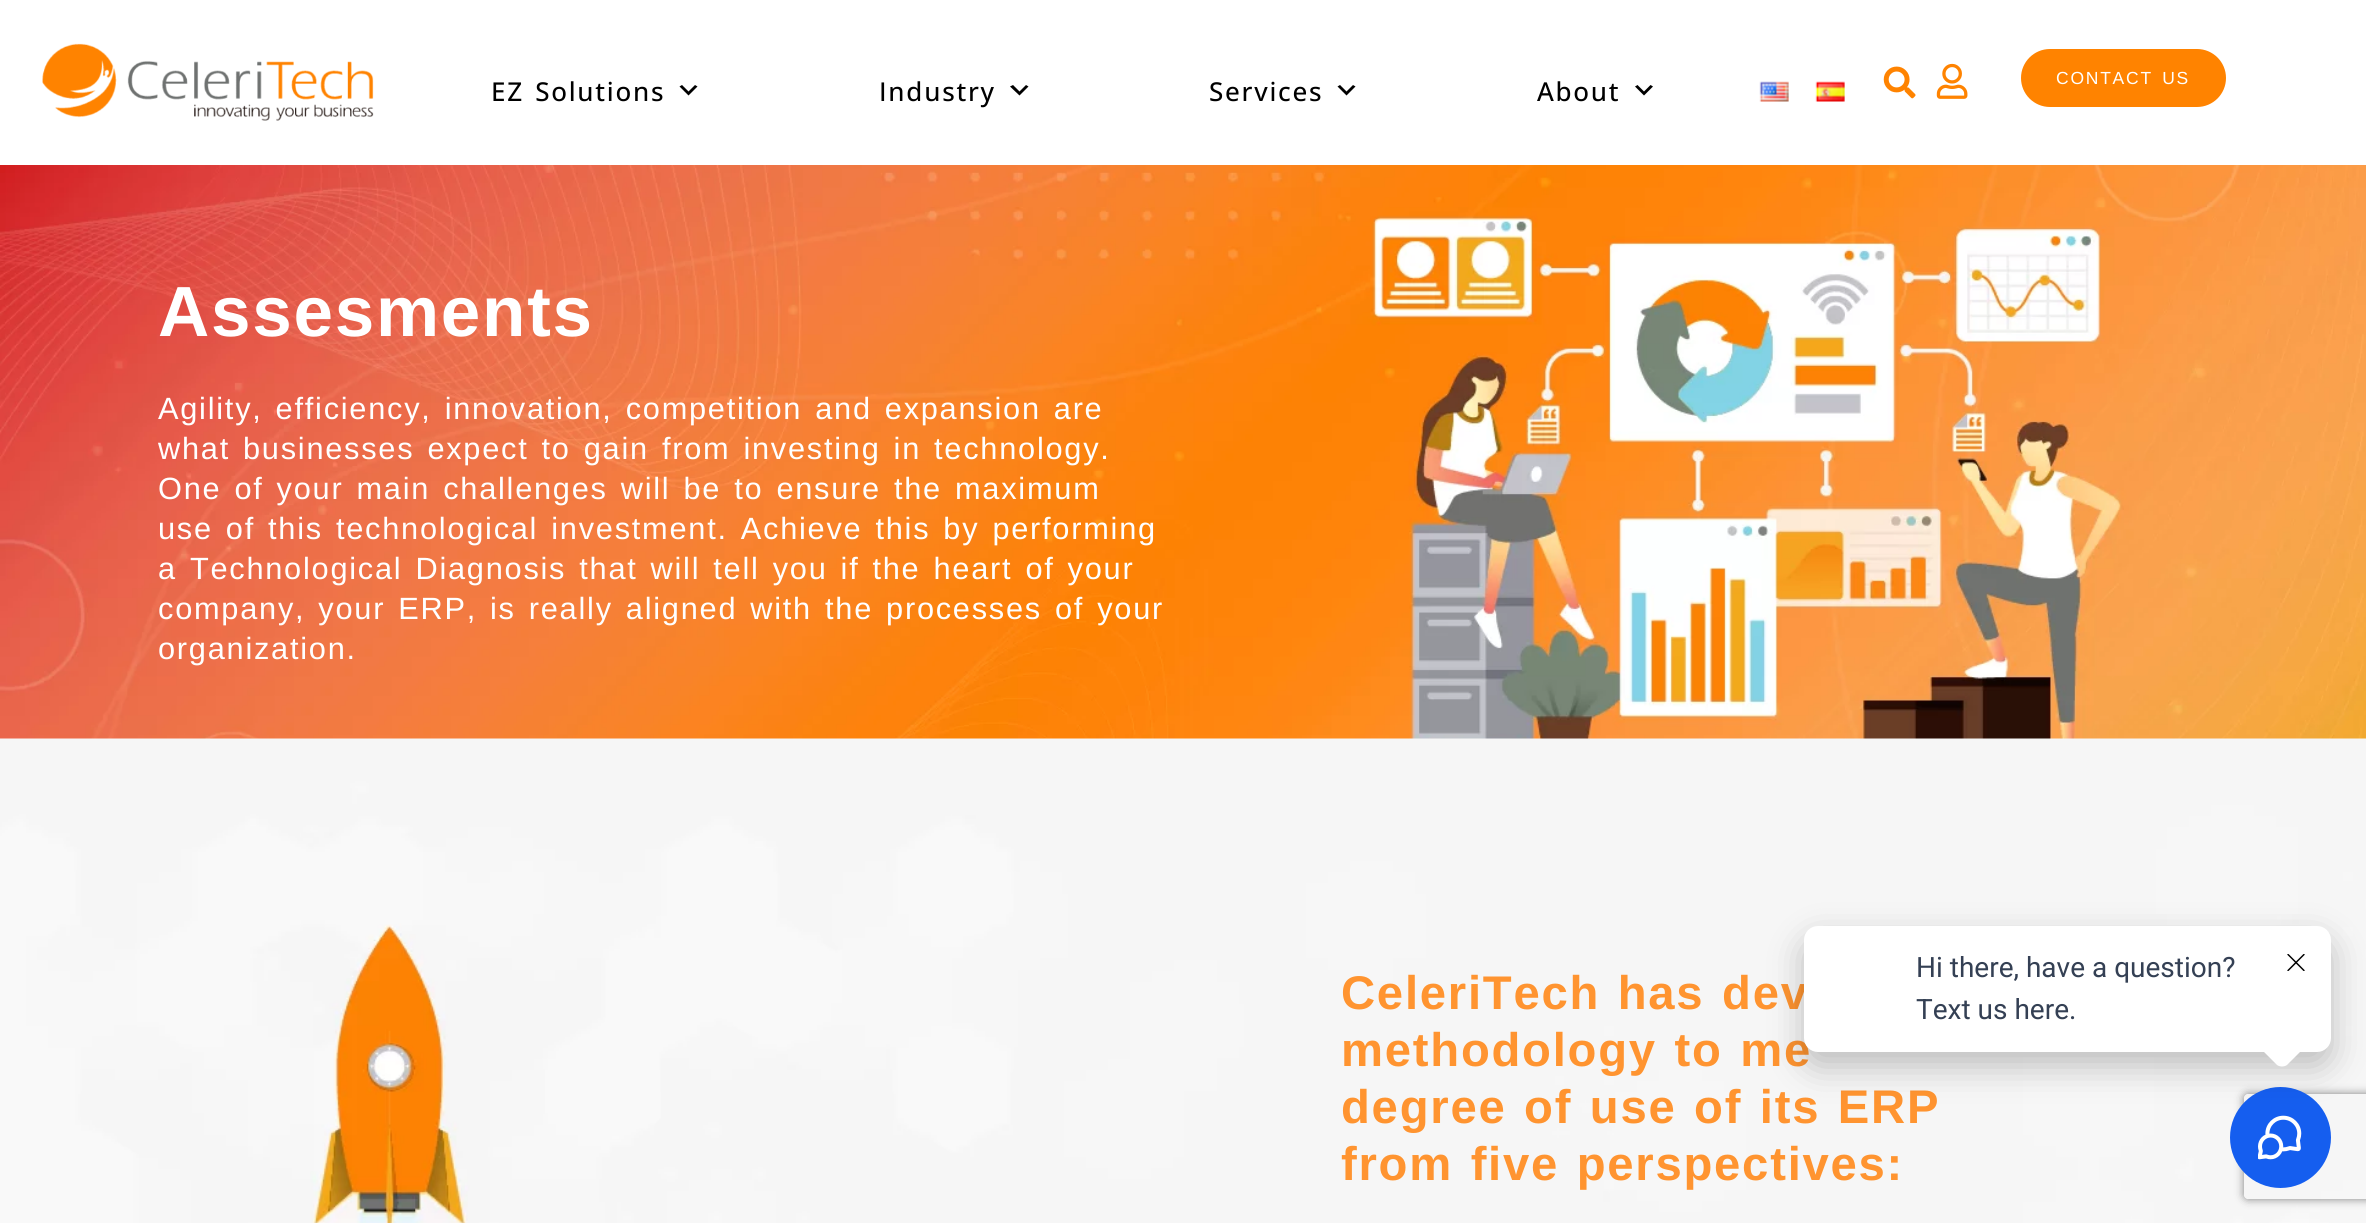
#include <cairo.h>
#include <math.h>
#include <stddef.h>

typedef struct { double x, y; const char *s; } line_t;

static void ink(cairo_t *ctx, unsigned color) {
    cairo_set_source_rgb(ctx, (color >> 16) / 255.0, (color >> 8 & 255) / 255.0, (color & 255) / 255.0);
}

static void write_spaced(cairo_t *ctx, double x, double y, const char *s, double letter, double word) {
    cairo_move_to(ctx, x, y);
    while (*s) {
        char ch[5] = {0};
        int n = 0;
        do ch[n++] = *s++; while ((*s & 0xC0) == 0x80);
        cairo_show_text(ctx, ch);
        cairo_rel_move_to(ctx, letter + word * (*ch == ' '), 0);
    }
}

static void round_path(cairo_t *ctx, double x, double y, double w, double h, double r) {
    cairo_new_sub_path(ctx);
    cairo_arc(ctx, x + w - r, y + h - r, r, 0, M_PI / 2);
    cairo_arc(ctx, x + r, y + h - r, r, M_PI / 2, M_PI);
    cairo_arc(ctx, x + r, y + r, r, M_PI, 1.5 * M_PI);
    cairo_arc(ctx, x + w - r, y + r, r, 1.5 * M_PI, 2 * M_PI);
    cairo_close_path(ctx);
}

static void blur_box(cairo_t *ctx, double x, double y, double w, double h, double r, double blur, double alpha) {
    cairo_push_group_with_content(ctx, CAIRO_CONTENT_ALPHA);
    cairo_set_operator(ctx, CAIRO_OPERATOR_SOURCE);
    for (int i = 15; i >= -15 && fmin(w, h) + blur * i / 3 > 0; i -= 2) {
        double e = blur * i / 6;
        cairo_set_source_rgba(ctx, 0, 0, 0, alpha * erfc((i - 1) / 8.5) / 2);
        round_path(ctx, x - e, y - e, w + 2 * e, h + 2 * e, fmax(0, fmin(r + e + blur * .6, fmin(w, h) / 2 + e)));
        cairo_fill(ctx);
    }
    cairo_pattern_t *soft = cairo_pop_group(ctx);
    cairo_mask(ctx, soft);
    cairo_pattern_destroy(soft);
}

static void paste(cairo_t *ctx, const char *path, double x, double y, double w, double h) {
    cairo_surface_t *image = cairo_image_surface_create_from_png(path);
    cairo_save(ctx);
    cairo_set_source_surface(ctx, image, x, y);
    cairo_rectangle(ctx, x, y, w, h);
    cairo_fill(ctx);
    cairo_restore(ctx);
    cairo_surface_destroy(image);
}

int main(void) {
    cairo_surface_t *surface = cairo_image_surface_create(CAIRO_FORMAT_RGB24, 2366, 1223);
    cairo_t *ctx = cairo_create(surface);
    cairo_font_options_t *options = cairo_font_options_create();
    cairo_font_options_set_hint_metrics(options, CAIRO_HINT_METRICS_OFF);
    cairo_font_options_set_hint_style(options, CAIRO_HINT_STYLE_NONE);
    cairo_set_font_options(ctx, options);
    cairo_set_miter_limit(ctx, 4);
    ink(ctx, 0xFFFFFF);
    cairo_paint(ctx);
    paste(ctx, "media/1.png", 42, 43, 332, 78);
    paste(ctx, "media/2.png", 1883, 66, 33, 33);
    paste(ctx, "media/3.png", 1936, 63, 32, 36);
    ink(ctx, 0xFF8300);
    round_path(ctx, 2021, 49, 205, 58, 29);
    cairo_fill(ctx);
    cairo_select_font_face(ctx, "Liberation Sans", CAIRO_FONT_SLANT_NORMAL, CAIRO_FONT_WEIGHT_NORMAL);
    cairo_set_font_size(ctx, 17.5);
    ink(ctx, 0xFFFFFF);
    write_spaced(ctx, 2056, 84, "CONTACT US", 1.75, 2.75);
    cairo_select_font_face(ctx, "Open Sans Medium", CAIRO_FONT_SLANT_NORMAL, CAIRO_FONT_WEIGHT_NORMAL);
    cairo_set_font_size(ctx, 26);
    ink(ctx, 0x000000);
    write_spaced(ctx, 491, 101, "EZ Solutions", 1.75, 2.75);
    cairo_new_path(ctx);
    cairo_move_to(ctx, 682, 85);
    cairo_line_to(ctx, 688.5, 91.5);
    cairo_line_to(ctx, 695, 85);
    cairo_line_to(ctx, 697.5, 86.5);
    cairo_line_to(ctx, 688.5, 95.5);
    cairo_line_to(ctx, 679.5, 86.5);
    cairo_close_path(ctx);
    cairo_fill(ctx);
    write_spaced(ctx, 879, 101, "Industry", 1.75, 0);
    cairo_new_path(ctx);
    cairo_move_to(ctx, 1013, 85);
    cairo_line_to(ctx, 1019.5, 91.5);
    cairo_line_to(ctx, 1026, 85);
    cairo_line_to(ctx, 1028.5, 86.5);
    cairo_line_to(ctx, 1019.5, 95.5);
    cairo_line_to(ctx, 1010, 86.5);
    cairo_close_path(ctx);
    cairo_fill(ctx);
    write_spaced(ctx, 1209, 101, "Services", 1.75, 0);
    cairo_new_path(ctx);
    cairo_move_to(ctx, 1340, 85);
    cairo_line_to(ctx, 1346.5, 91.5);
    cairo_line_to(ctx, 1353, 85);
    cairo_line_to(ctx, 1355.5, 86.5);
    cairo_line_to(ctx, 1346.5, 95.5);
    cairo_line_to(ctx, 1337.5, 86.5);
    cairo_close_path(ctx);
    cairo_fill(ctx);
    write_spaced(ctx, 1537, 101, "About", 1.75, 0);
    cairo_new_path(ctx);
    cairo_move_to(ctx, 1637.5, 85);
    cairo_line_to(ctx, 1644, 91.5);
    cairo_line_to(ctx, 1650.5, 85);
    cairo_line_to(ctx, 1653, 86.5);
    cairo_line_to(ctx, 1644, 95.5);
    cairo_line_to(ctx, 1635, 86.5);
    cairo_close_path(ctx);
    cairo_fill(ctx);
    paste(ctx, "media/4.png", 1759, 81, 30, 21);
    paste(ctx, "media/5.png", 1815, 81, 30, 21);
    paste(ctx, "media/6.png", 0, 165, 2366, 574);
    cairo_select_font_face(ctx, "Liberation Sans", CAIRO_FONT_SLANT_NORMAL, CAIRO_FONT_WEIGHT_BOLD);
    cairo_set_font_size(ctx, 71);
    ink(ctx, 0xFFFFFF);
    write_spaced(ctx, 158, 336, "Assesments", 1.75, 0);
    cairo_select_font_face(ctx, "Liberation Sans", CAIRO_FONT_SLANT_NORMAL, CAIRO_FONT_WEIGHT_NORMAL);
    cairo_set_font_size(ctx, 30.75);
    {
        static const line_t items[] = {
            {158, 419, "Agility, efficiency, innovation, competition and expansion are"},
            {158, 459, "what businesses expect to gain from investing in technology."},
            {158, 499, "One of your main challenges will be to ensure the maximum"},
            {158, 539, "use of this technological investment. Achieve this by performing"},
            {158, 579, "a Technological Diagnosis that will tell you if the heart of your"},
            {158, 619, "company, your ERP, is really aligned with the processes of your"},
        };
        for (size_t i = 0; i < sizeof items / sizeof *items; i++) {
            write_spaced(ctx, items[i].x, items[i].y, items[i].s, 1.75, 2.75);
        }
    }
    write_spaced(ctx, 158, 659, "organization.", 1.75, 0);
    paste(ctx, "media/7.png", 0, 738, 2366, 485);
    cairo_select_font_face(ctx, "Liberation Sans", CAIRO_FONT_SLANT_NORMAL, CAIRO_FONT_WEIGHT_BOLD);
    cairo_set_font_size(ctx, 47.25);
    ink(ctx, 0xFF9430);
    {
        static const line_t items[] = {
            {1341, 1009, "CeleriTech has dev"},
            {1341, 1066, "methodology to me"},
            {1341, 1123, "degree of use of its ERP"},
            {1341, 1180, "from five perspectives:"},
        };
        for (size_t i = 0; i < sizeof items / sizeof *items; i++) {
            write_spaced(ctx, items[i].x, items[i].y, items[i].s, 1.75, 2.75);
        }
    }
    cairo_save(ctx);
    cairo_set_fill_rule(ctx, CAIRO_FILL_RULE_EVEN_ODD);
    cairo_new_path(ctx);
    cairo_move_to(ctx, 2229, 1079);
    cairo_line_to(ctx, 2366, 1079);
    cairo_line_to(ctx, 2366, 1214);
    cairo_line_to(ctx, 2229, 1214);
    cairo_close_path(ctx);
    cairo_move_to(ctx, 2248, 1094);
    cairo_line_to(ctx, 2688, 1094);
    cairo_curve_to(ctx, 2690, 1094, 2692, 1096, 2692, 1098);
    cairo_line_to(ctx, 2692, 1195);
    cairo_curve_to(ctx, 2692, 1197, 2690, 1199, 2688, 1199);
    cairo_line_to(ctx, 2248, 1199);
    cairo_curve_to(ctx, 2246, 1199, 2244, 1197, 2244, 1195);
    cairo_line_to(ctx, 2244, 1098);
    cairo_curve_to(ctx, 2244, 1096, 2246, 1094, 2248, 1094);
    cairo_close_path(ctx);
    cairo_clip(ctx);
    ink(ctx, 0x808080);
    blur_box(ctx, 2244, 1094, 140, 105, 4, 4.5, 1);
    cairo_restore(ctx);
    ink(ctx, 0x155EEF);
    cairo_arc(ctx, 2280.5, 1137.5, 50.5, 0, 2 * M_PI);
    cairo_fill(ctx);
    paste(ctx, "media/9.png", 2258, 1115, 44, 45);
    ink(ctx, 0x000000);
    blur_box(ctx, 1804, 940, 527, 126, 14, 17.5, 0.24);
    ink(ctx, 0xFFFFFF);
    round_path(ctx, 1804, 926, 527, 126, 14);
    cairo_fill(ctx);
    cairo_select_font_face(ctx, "Roboto", CAIRO_FONT_SLANT_NORMAL, CAIRO_FONT_WEIGHT_NORMAL);
    cairo_set_font_size(ctx, 28);
    ink(ctx, 0x344054);
    cairo_move_to(ctx, 1916, 977);
    cairo_show_text(ctx, "Hi there, have a question?");
    cairo_move_to(ctx, 1916, 1019);
    cairo_show_text(ctx, "Text us here.");
    ink(ctx, 0xFFFFFF);
    cairo_new_path(ctx);
    cairo_move_to(ctx, 2287, 1025);
    cairo_line_to(ctx, 2302, 1040);
    cairo_curve_to(ctx, 2305, 1043, 2305, 1047, 2302, 1050);
    cairo_line_to(ctx, 2287, 1065);
    cairo_curve_to(ctx, 2284, 1067, 2280, 1067, 2277, 1065);
    cairo_line_to(ctx, 2262, 1050);
    cairo_curve_to(ctx, 2259, 1047, 2259, 1043, 2262, 1040);
    cairo_line_to(ctx, 2277, 1025);
    cairo_curve_to(ctx, 2280, 1022, 2284, 1022, 2287, 1025);
    cairo_close_path(ctx);
    cairo_fill(ctx);
    paste(ctx, "media/8.png", 2287, 954, 18, 17);
    cairo_surface_write_to_png(surface, "image.png");
    cairo_font_options_destroy(options);
    cairo_destroy(ctx);
    cairo_surface_destroy(surface);
    return 0;
}
